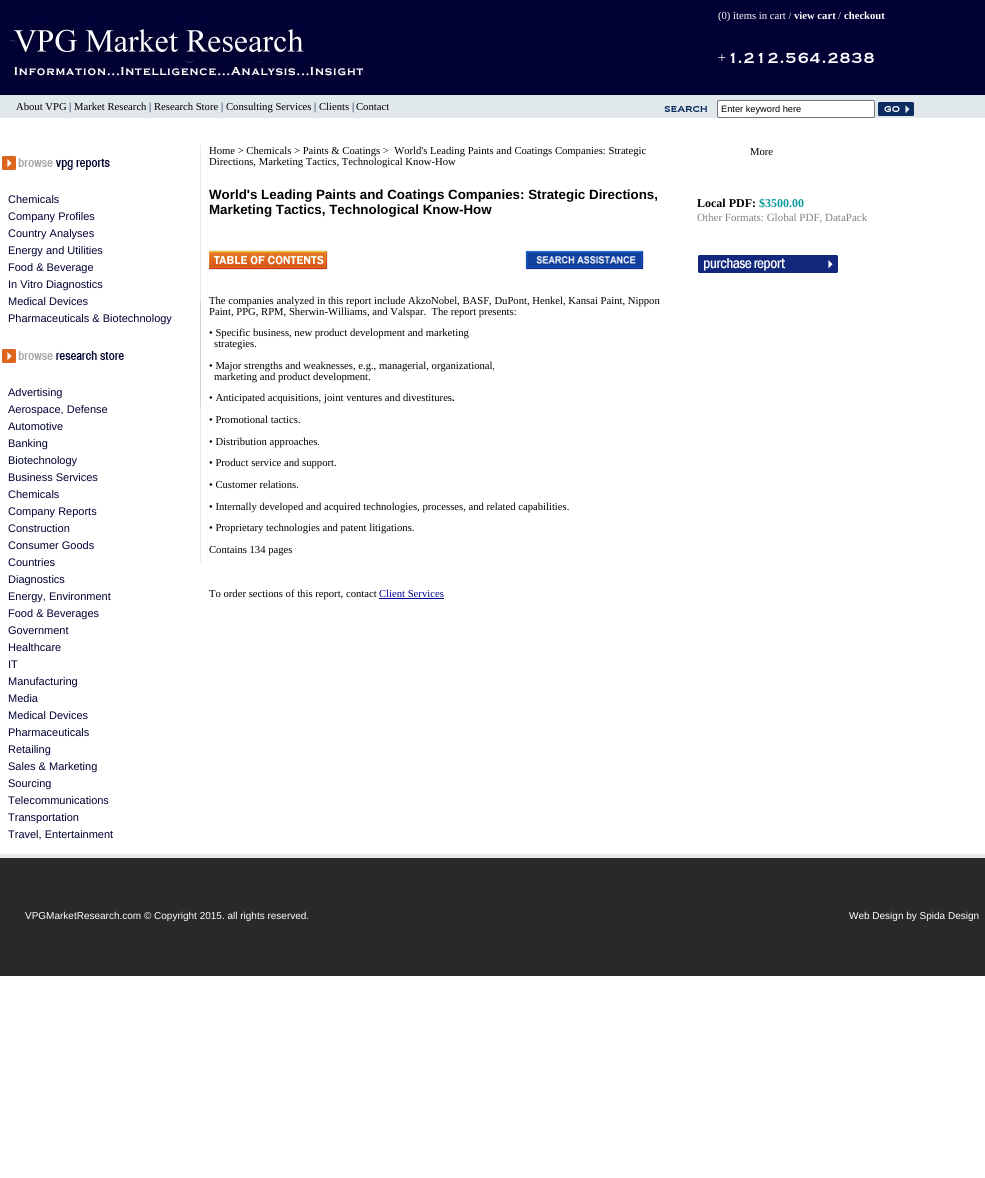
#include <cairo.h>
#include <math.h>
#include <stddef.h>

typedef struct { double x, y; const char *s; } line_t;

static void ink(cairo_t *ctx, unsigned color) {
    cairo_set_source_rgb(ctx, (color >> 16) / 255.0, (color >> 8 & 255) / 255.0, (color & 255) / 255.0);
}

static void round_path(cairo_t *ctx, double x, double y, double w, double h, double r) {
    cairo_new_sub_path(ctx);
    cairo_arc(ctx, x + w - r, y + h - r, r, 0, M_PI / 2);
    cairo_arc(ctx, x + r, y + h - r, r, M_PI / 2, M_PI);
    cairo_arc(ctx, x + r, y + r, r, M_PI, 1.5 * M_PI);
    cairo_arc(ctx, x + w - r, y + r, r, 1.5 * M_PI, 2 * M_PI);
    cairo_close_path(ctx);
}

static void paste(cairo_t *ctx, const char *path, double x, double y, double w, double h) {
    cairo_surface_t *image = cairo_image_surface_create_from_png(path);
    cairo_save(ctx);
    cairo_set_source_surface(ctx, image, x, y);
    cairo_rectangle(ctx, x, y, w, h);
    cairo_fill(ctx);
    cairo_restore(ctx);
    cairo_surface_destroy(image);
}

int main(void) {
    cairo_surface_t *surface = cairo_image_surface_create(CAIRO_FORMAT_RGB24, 985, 1178);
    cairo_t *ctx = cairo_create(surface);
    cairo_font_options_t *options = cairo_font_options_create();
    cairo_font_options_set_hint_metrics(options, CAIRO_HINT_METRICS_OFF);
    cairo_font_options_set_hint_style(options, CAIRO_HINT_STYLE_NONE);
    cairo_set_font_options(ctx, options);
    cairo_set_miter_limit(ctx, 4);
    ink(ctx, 0xFFFFFF);
    cairo_paint(ctx);
    paste(ctx, "media/1.png", 0, 0, 371, 95);
    ink(ctx, 0x000034);
    cairo_rectangle(ctx, 371, 0, 306, 95);
    cairo_fill(ctx);
    paste(ctx, "media/2.png", 677, 0, 248, 95);
    cairo_select_font_face(ctx, "Liberation Serif", CAIRO_FONT_SLANT_NORMAL, CAIRO_FONT_WEIGHT_NORMAL);
    cairo_set_font_size(ctx, 10.65);
    ink(ctx, 0xFFFFFF);
    cairo_move_to(ctx, 718, 19);
    cairo_show_text(ctx, "(0) items in cart /");
    cairo_select_font_face(ctx, "Liberation Serif", CAIRO_FONT_SLANT_NORMAL, CAIRO_FONT_WEIGHT_BOLD);
    cairo_move_to(ctx, 794, 19);
    cairo_show_text(ctx, "view cart");
    cairo_select_font_face(ctx, "Liberation Serif", CAIRO_FONT_SLANT_NORMAL, CAIRO_FONT_WEIGHT_NORMAL);
    cairo_move_to(ctx, 838, 19);
    cairo_show_text(ctx, "/");
    cairo_select_font_face(ctx, "Liberation Serif", CAIRO_FONT_SLANT_NORMAL, CAIRO_FONT_WEIGHT_BOLD);
    cairo_move_to(ctx, 844, 19);
    cairo_show_text(ctx, "checkout");
    ink(ctx, 0x000033);
    cairo_rectangle(ctx, 925, 0, 60, 95);
    cairo_fill(ctx);
    ink(ctx, 0xE0E8EC);
    cairo_rectangle(ctx, 0, 95, 985, 23);
    cairo_fill(ctx);
    cairo_select_font_face(ctx, "Liberation Serif", CAIRO_FONT_SLANT_NORMAL, CAIRO_FONT_WEIGHT_NORMAL);
    ink(ctx, 0x000000);
    cairo_move_to(ctx, 16, 110);
    cairo_show_text(ctx, "About VPG");
    ink(ctx, 0x000033);
    cairo_move_to(ctx, 69, 110);
    cairo_show_text(ctx, "|");
    ink(ctx, 0x000000);
    cairo_move_to(ctx, 74, 110);
    cairo_show_text(ctx, "Market Research");
    ink(ctx, 0x000033);
    cairo_move_to(ctx, 149, 110);
    cairo_show_text(ctx, "|");
    ink(ctx, 0x000000);
    cairo_move_to(ctx, 154, 110);
    cairo_show_text(ctx, "Research Store");
    ink(ctx, 0x000033);
    cairo_move_to(ctx, 221, 110);
    cairo_show_text(ctx, "|");
    ink(ctx, 0x000000);
    cairo_move_to(ctx, 226, 110);
    cairo_show_text(ctx, "Consulting Services");
    ink(ctx, 0x000033);
    cairo_move_to(ctx, 314, 110);
    cairo_show_text(ctx, "|");
    ink(ctx, 0x000000);
    cairo_move_to(ctx, 319, 110);
    cairo_show_text(ctx, "Clients");
    ink(ctx, 0x000033);
    cairo_move_to(ctx, 352, 110);
    cairo_show_text(ctx, "|");
    ink(ctx, 0x000000);
    cairo_move_to(ctx, 356, 110);
    cairo_show_text(ctx, "Contact");
    paste(ctx, "media/3.png", 664, 106, 43, 6);
    ink(ctx, 0xFFFFFF);
    round_path(ctx, 717.5, 100.5, 157, 17, 1.5);
    cairo_fill_preserve(ctx);
    ink(ctx, 0x767676);
    cairo_set_line_width(ctx, 1);
    cairo_stroke(ctx);
    cairo_select_font_face(ctx, "Liberation Sans", CAIRO_FONT_SLANT_NORMAL, CAIRO_FONT_WEIGHT_NORMAL);
    cairo_set_font_size(ctx, 9.25);
    ink(ctx, 0x000000);
    cairo_move_to(ctx, 721, 112);
    cairo_show_text(ctx, "Enter keyword here");
    paste(ctx, "media/4.png", 876, 102, 38, 14);
    paste(ctx, "media/5.png", 2, 156, 108, 14);
    cairo_set_font_size(ctx, 11);
    ink(ctx, 0x000033);
    {
        static const line_t items[] = {
            {8, 203, "Chemicals"},
            {8, 220, "Company Profiles"},
            {8, 237, "Country Analyses"},
            {8, 254, "Energy and Utilities"},
            {8, 271, "Food & Beverage"},
            {8, 288, "In Vitro Diagnostics"},
            {8, 305, "Medical Devices"},
            {8, 322, "Pharmaceuticals & Biotechnology"},
        };
        for (size_t i = 0; i < sizeof items / sizeof *items; i++) {
            cairo_move_to(ctx, items[i].x, items[i].y);
            cairo_show_text(ctx, items[i].s);
        }
    }
    paste(ctx, "media/6.png", 2, 349, 122, 14);
    {
        static const line_t items[] = {
            {8, 396, "Advertising"},
            {8, 413, "Aerospace, Defense"},
            {8, 430, "Automotive"},
            {8, 447, "Banking"},
            {8, 464, "Biotechnology"},
            {8, 481, "Business Services"},
            {8, 498, "Chemicals"},
            {8, 515, "Company Reports"},
            {8, 532, "Construction"},
            {8, 549, "Consumer Goods"},
            {8, 566, "Countries"},
            {8, 583, "Diagnostics"},
            {8, 600, "Energy, Environment"},
            {8, 617, "Food & Beverages"},
            {8, 634, "Government"},
            {8, 651, "Healthcare"},
            {8, 668, "IT"},
            {8, 685, "Manufacturing"},
            {8, 702, "Media"},
            {8, 719, "Medical Devices"},
            {8, 736, "Pharmaceuticals"},
            {8, 753, "Retailing"},
            {8, 770, "Sales & Marketing"},
            {8, 787, "Sourcing"},
            {8, 804, "Telecommunications"},
            {8, 821, "Transportation"},
            {8, 838, "Travel, Entertainment"},
        };
        for (size_t i = 0; i < sizeof items / sizeof *items; i++) {
            cairo_move_to(ctx, items[i].x, items[i].y);
            cairo_show_text(ctx, items[i].s);
        }
    }
    paste(ctx, "media/7.png", 200, 145, 1, 418);
    cairo_select_font_face(ctx, "Liberation Serif", CAIRO_FONT_SLANT_NORMAL, CAIRO_FONT_WEIGHT_NORMAL);
    cairo_set_font_size(ctx, 10.65);
    ink(ctx, 0x000000);
    cairo_move_to(ctx, 209, 154);
    cairo_show_text(ctx, "Home > Chemicals > Paints & Coatings >  World's Leading Paints and Coatings Companies: Strategic");
    cairo_move_to(ctx, 209, 165);
    cairo_show_text(ctx, "Directions, Marketing Tactics, Technological Know-How");
    cairo_select_font_face(ctx, "Liberation Sans", CAIRO_FONT_SLANT_NORMAL, CAIRO_FONT_WEIGHT_BOLD);
    cairo_set_font_size(ctx, 13.35);
    cairo_move_to(ctx, 209, 199);
    cairo_show_text(ctx, "World's Leading Paints and Coatings Companies: Strategic Directions,");
    cairo_move_to(ctx, 209, 214);
    cairo_show_text(ctx, "Marketing Tactics, Technological Know-How");
    paste(ctx, "media/8.png", 209, 250, 119, 20);
    paste(ctx, "media/9.png", 525, 250, 119, 20);
    cairo_select_font_face(ctx, "Liberation Serif", CAIRO_FONT_SLANT_NORMAL, CAIRO_FONT_WEIGHT_NORMAL);
    cairo_set_font_size(ctx, 10.65);
    {
        static const line_t items[] = {
            {209, 304, "The companies analyzed in this report include AkzoNobel, BASF, DuPont, Henkel, Kansai Paint, Nippon"},
            {209, 315, "Paint, PPG, RPM, Sherwin-Williams, and Valspar.  The report presents:"},
            {209, 336, "• Specific business, new product development and marketing"},
            {214, 347, "strategies."},
            {209, 369, "• Major strengths and weaknesses, e.g., managerial, organizational,"},
            {214, 380, "marketing and product development."},
            {209, 401, "• Anticipated acquisitions, joint ventures and divestitures"},
        };
        for (size_t i = 0; i < sizeof items / sizeof *items; i++) {
            cairo_move_to(ctx, items[i].x, items[i].y);
            cairo_show_text(ctx, items[i].s);
        }
    }
    cairo_select_font_face(ctx, "Liberation Serif", CAIRO_FONT_SLANT_NORMAL, CAIRO_FONT_WEIGHT_BOLD);
    cairo_move_to(ctx, 452, 401);
    cairo_show_text(ctx, ".");
    cairo_select_font_face(ctx, "Liberation Serif", CAIRO_FONT_SLANT_NORMAL, CAIRO_FONT_WEIGHT_NORMAL);
    {
        static const line_t items[] = {
            {209, 423, "• Promotional tactics."},
            {209, 445, "• Distribution approaches."},
            {209, 466, "• Product service and support."},
            {209, 488, "• Customer relations."},
            {209, 510, "• Internally developed and acquired technologies, processes, and related capabilities."},
            {209, 531, "• Proprietary technologies and patent litigations."},
            {209, 553, "Contains 134 pages"},
            {209, 597, "To order sections of this report, contact"},
        };
        for (size_t i = 0; i < sizeof items / sizeof *items; i++) {
            cairo_move_to(ctx, items[i].x, items[i].y);
            cairo_show_text(ctx, items[i].s);
        }
    }
    ink(ctx, 0x000099);
    cairo_move_to(ctx, 379, 597);
    cairo_show_text(ctx, "Client Services");
    cairo_rectangle(ctx, 379, 598, 65, 1);
    cairo_fill(ctx);
    cairo_select_font_face(ctx, "Liberation Serif", CAIRO_FONT_SLANT_NORMAL, CAIRO_FONT_WEIGHT_BOLD);
    cairo_set_font_size(ctx, 12);
    ink(ctx, 0x000000);
    cairo_move_to(ctx, 697, 207);
    cairo_show_text(ctx, "Local PDF:");
    ink(ctx, 0x099B9B);
    cairo_move_to(ctx, 759, 207);
    cairo_show_text(ctx, "$3500.00");
    cairo_select_font_face(ctx, "Liberation Serif", CAIRO_FONT_SLANT_NORMAL, CAIRO_FONT_WEIGHT_NORMAL);
    cairo_set_font_size(ctx, 11);
    ink(ctx, 0x808080);
    cairo_move_to(ctx, 697, 221);
    cairo_show_text(ctx, "Other Formats: Global PDF, DataPack");
    paste(ctx, "media/10.png", 698, 255, 140, 18);
    cairo_set_font_size(ctx, 10.65);
    ink(ctx, 0x000000);
    cairo_move_to(ctx, 750, 155);
    cairo_show_text(ctx, "More");
    paste(ctx, "media/11.png", 0, 854, 389, 122);
    cairo_select_font_face(ctx, "Liberation Sans", CAIRO_FONT_SLANT_NORMAL, CAIRO_FONT_WEIGHT_NORMAL);
    cairo_set_font_size(ctx, 10);
    ink(ctx, 0xFFFFFF);
    cairo_move_to(ctx, 25, 919);
    cairo_show_text(ctx, "VPGMarketResearch.com © Copyright 2015. all rights reserved.");
    paste(ctx, "media/12.png", 389, 854, 394, 122);
    paste(ctx, "media/13.png", 783, 854, 202, 122);
    cairo_move_to(ctx, 849, 919);
    cairo_show_text(ctx, "Web Design by Spida Design");
    cairo_surface_write_to_png(surface, "image.png");
    cairo_font_options_destroy(options);
    cairo_destroy(ctx);
    cairo_surface_destroy(surface);
    return 0;
}
